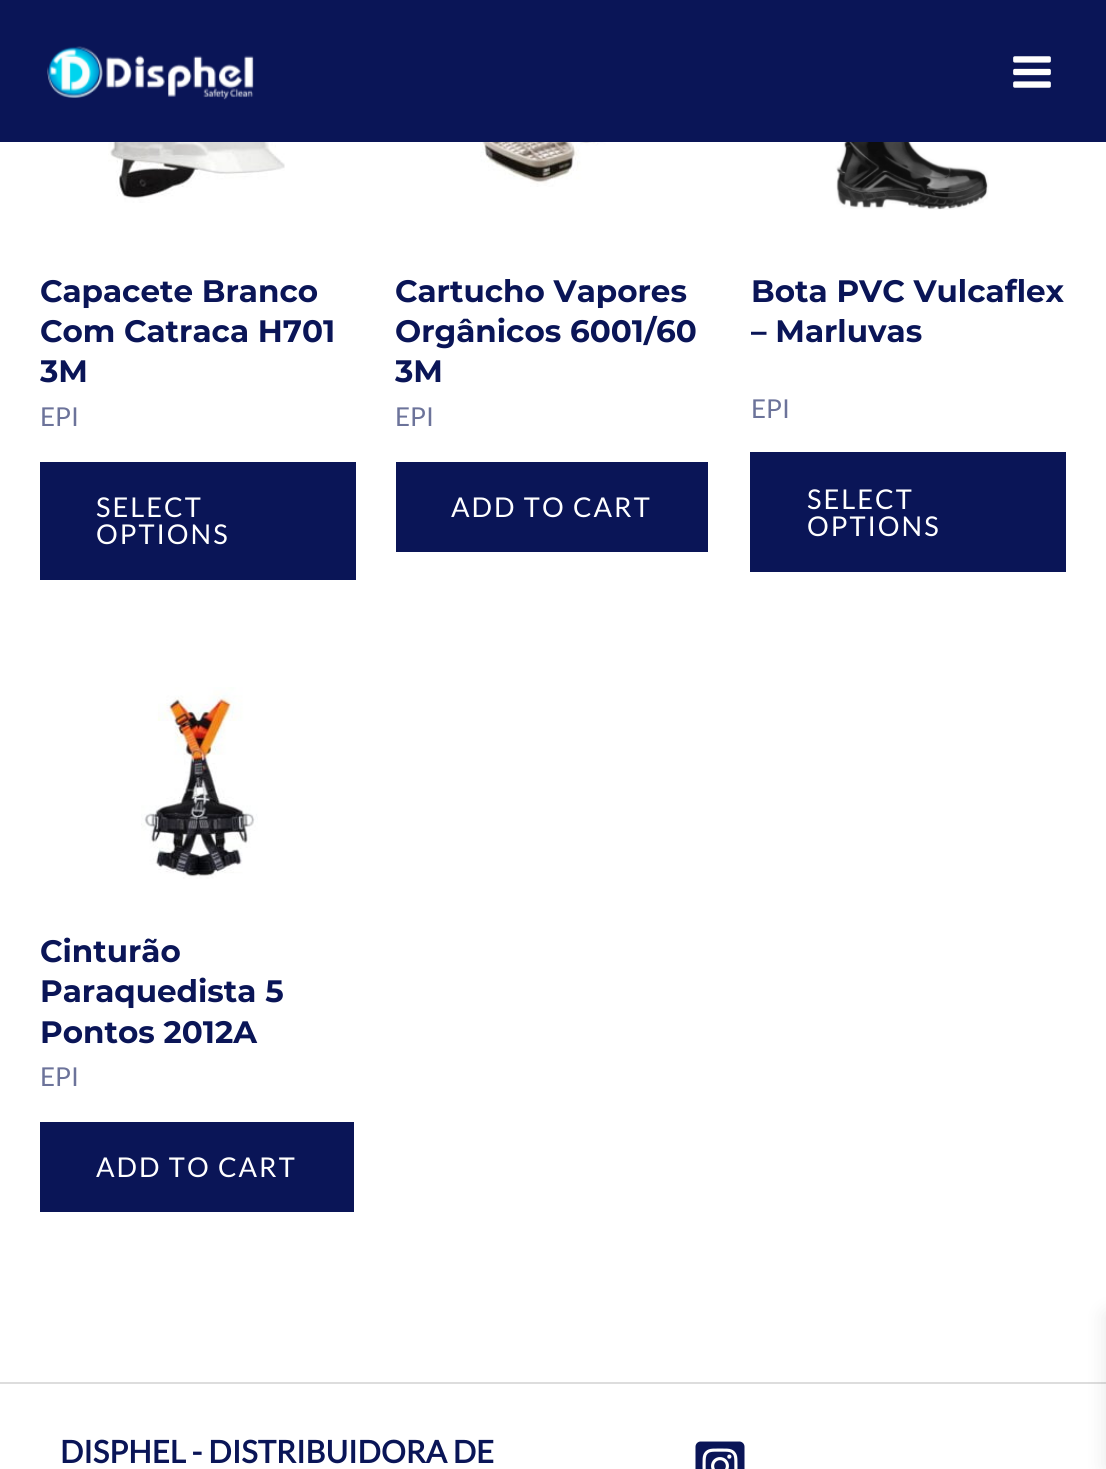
#include <cairo.h>
#include <math.h>
#include <stddef.h>

typedef struct { double x, y; const char *s; } line_t;

static void ink(cairo_t *ctx, unsigned color) {
    cairo_set_source_rgb(ctx, (color >> 16) / 255.0, (color >> 8 & 255) / 255.0, (color & 255) / 255.0);
}

static void write_spaced(cairo_t *ctx, double x, double y, const char *s, double letter, double word) {
    cairo_move_to(ctx, x, y);
    while (*s) {
        char ch[5] = {0};
        int n = 0;
        do ch[n++] = *s++; while ((*s & 0xC0) == 0x80);
        cairo_show_text(ctx, ch);
        cairo_rel_move_to(ctx, letter + word * (*ch == ' '), 0);
    }
}

static void round_path(cairo_t *ctx, double x, double y, double w, double h, double r) {
    cairo_new_sub_path(ctx);
    cairo_arc(ctx, x + w - r, y + h - r, r, 0, M_PI / 2);
    cairo_arc(ctx, x + r, y + h - r, r, M_PI / 2, M_PI);
    cairo_arc(ctx, x + r, y + r, r, M_PI, 1.5 * M_PI);
    cairo_arc(ctx, x + w - r, y + r, r, 1.5 * M_PI, 2 * M_PI);
    cairo_close_path(ctx);
}

static void blur_box(cairo_t *ctx, double x, double y, double w, double h, double r, double blur, double alpha) {
    cairo_push_group_with_content(ctx, CAIRO_CONTENT_ALPHA);
    cairo_set_operator(ctx, CAIRO_OPERATOR_SOURCE);
    for (int i = 15; i >= -15 && fmin(w, h) + blur * i / 3 > 0; i -= 2) {
        double e = blur * i / 6;
        cairo_set_source_rgba(ctx, 0, 0, 0, alpha * erfc((i - 1) / 8.5) / 2);
        round_path(ctx, x - e, y - e, w + 2 * e, h + 2 * e, fmax(0, fmin(r + e + blur * .6, fmin(w, h) / 2 + e)));
        cairo_fill(ctx);
    }
    cairo_pattern_t *soft = cairo_pop_group(ctx);
    cairo_mask(ctx, soft);
    cairo_pattern_destroy(soft);
}

static void paste(cairo_t *ctx, const char *path, double x, double y, double w, double h) {
    cairo_surface_t *image = cairo_image_surface_create_from_png(path);
    cairo_save(ctx);
    cairo_set_source_surface(ctx, image, x, y);
    cairo_rectangle(ctx, x, y, w, h);
    cairo_fill(ctx);
    cairo_restore(ctx);
    cairo_surface_destroy(image);
}

int main(void) {
    cairo_surface_t *surface = cairo_image_surface_create(CAIRO_FORMAT_RGB24, 1106, 1469);
    cairo_t *ctx = cairo_create(surface);
    cairo_font_options_t *options = cairo_font_options_create();
    cairo_font_options_set_hint_metrics(options, CAIRO_HINT_METRICS_OFF);
    cairo_font_options_set_hint_style(options, CAIRO_HINT_STYLE_NONE);
    cairo_set_font_options(ctx, options);
    cairo_set_miter_limit(ctx, 4);
    ink(ctx, 0xFFFFFF);
    cairo_paint(ctx);
    ink(ctx, 0x0A1557);
    cairo_rectangle(ctx, 0, 0, 1106, 142);
    cairo_fill(ctx);
    paste(ctx, "media/1.png", 47, 46, 207, 54);
    paste(ctx, "media/2.png", 1013, 56, 38, 32);
    paste(ctx, "media/3.png", 108, 142, 177, 61);
    cairo_select_font_face(ctx, "Montserrat", CAIRO_FONT_SLANT_NORMAL, CAIRO_FONT_WEIGHT_BOLD);
    cairo_set_font_size(ctx, 31);
    {
        static const line_t items[] = {
            {40, 302, "Capacete Branco"},
            {40, 342, "Com Catraca H701"},
            {40, 382, "3M"},
        };
        for (size_t i = 0; i < sizeof items / sizeof *items; i++) {
            cairo_move_to(ctx, items[i].x, items[i].y);
            cairo_show_text(ctx, items[i].s);
        }
    }
    cairo_select_font_face(ctx, "Lato", CAIRO_FONT_SLANT_NORMAL, CAIRO_FONT_WEIGHT_NORMAL);
    cairo_set_font_size(ctx, 26);
    ink(ctx, 0x6C739A);
    cairo_move_to(ctx, 40, 426);
    cairo_show_text(ctx, "EPI");
    ink(ctx, 0x0A1557);
    cairo_rectangle(ctx, 40, 462, 316, 118);
    cairo_fill(ctx);
    cairo_set_font_size(ctx, 27.25);
    ink(ctx, 0xFFFFFF);
    write_spaced(ctx, 96, 517, "SELECT", 2, 0);
    write_spaced(ctx, 96, 544, "OPTIONS", 2, 0);
    paste(ctx, "media/4.png", 480, 142, 149, 45);
    cairo_select_font_face(ctx, "Montserrat", CAIRO_FONT_SLANT_NORMAL, CAIRO_FONT_WEIGHT_BOLD);
    cairo_set_font_size(ctx, 31);
    ink(ctx, 0x0A1557);
    {
        static const line_t items[] = {
            {395, 302, "Cartucho Vapores"},
            {395, 342, "Orgânicos 6001/60"},
            {395, 382, "3M"},
        };
        for (size_t i = 0; i < sizeof items / sizeof *items; i++) {
            cairo_move_to(ctx, items[i].x, items[i].y);
            cairo_show_text(ctx, items[i].s);
        }
    }
    cairo_select_font_face(ctx, "Lato", CAIRO_FONT_SLANT_NORMAL, CAIRO_FONT_WEIGHT_NORMAL);
    cairo_set_font_size(ctx, 26);
    ink(ctx, 0x6C739A);
    cairo_move_to(ctx, 395, 426);
    cairo_show_text(ctx, "EPI");
    ink(ctx, 0x0A1557);
    cairo_rectangle(ctx, 396, 462, 312, 90);
    cairo_fill(ctx);
    cairo_set_font_size(ctx, 27.25);
    ink(ctx, 0xFFFFFF);
    write_spaced(ctx, 451, 517, "ADD TO CART", 2, 0);
    paste(ctx, "media/5.png", 829, 142, 160, 68);
    cairo_select_font_face(ctx, "Montserrat", CAIRO_FONT_SLANT_NORMAL, CAIRO_FONT_WEIGHT_BOLD);
    cairo_set_font_size(ctx, 31);
    ink(ctx, 0x0A1557);
    cairo_move_to(ctx, 751, 302);
    cairo_show_text(ctx, "Bota PVC Vulcaflex");
    cairo_move_to(ctx, 751, 342);
    cairo_show_text(ctx, "– Marluvas");
    cairo_select_font_face(ctx, "Lato", CAIRO_FONT_SLANT_NORMAL, CAIRO_FONT_WEIGHT_NORMAL);
    cairo_set_font_size(ctx, 26);
    ink(ctx, 0x6C739A);
    cairo_move_to(ctx, 751, 418);
    cairo_show_text(ctx, "EPI");
    ink(ctx, 0x0A1557);
    cairo_rectangle(ctx, 750, 452, 316, 120);
    cairo_fill(ctx);
    cairo_set_font_size(ctx, 27.25);
    ink(ctx, 0xFFFFFF);
    write_spaced(ctx, 807, 509, "SELECT", 2, 0);
    write_spaced(ctx, 807, 536, "OPTIONS", 2, 0);
    paste(ctx, "media/6.png", 141, 687, 117, 192);
    cairo_select_font_face(ctx, "Montserrat", CAIRO_FONT_SLANT_NORMAL, CAIRO_FONT_WEIGHT_BOLD);
    cairo_set_font_size(ctx, 31);
    ink(ctx, 0x0A1557);
    {
        static const line_t items[] = {
            {40, 962, "Cinturão"},
            {40, 1002, "Paraquedista 5"},
            {40, 1043, "Pontos 2012A"},
        };
        for (size_t i = 0; i < sizeof items / sizeof *items; i++) {
            cairo_move_to(ctx, items[i].x, items[i].y);
            cairo_show_text(ctx, items[i].s);
        }
    }
    cairo_select_font_face(ctx, "Lato", CAIRO_FONT_SLANT_NORMAL, CAIRO_FONT_WEIGHT_NORMAL);
    cairo_set_font_size(ctx, 26);
    ink(ctx, 0x6C739A);
    cairo_move_to(ctx, 40, 1086);
    cairo_show_text(ctx, "EPI");
    ink(ctx, 0x0A1557);
    cairo_rectangle(ctx, 40, 1122, 314, 90);
    cairo_fill(ctx);
    cairo_set_font_size(ctx, 27.25);
    ink(ctx, 0xFFFFFF);
    write_spaced(ctx, 96, 1177, "ADD TO CART", 2, 0);
    ink(ctx, 0xDDDDDD);
    cairo_rectangle(ctx, 0, 1382, 1106, 2);
    cairo_fill(ctx);
    cairo_select_font_face(ctx, "Lato", CAIRO_FONT_SLANT_NORMAL, CAIRO_FONT_WEIGHT_BOLD);
    cairo_set_font_size(ctx, 31);
    ink(ctx, 0x0A1557);
    cairo_move_to(ctx, 60, 1463);
    cairo_show_text(ctx, "DISPHEL - DISTRIBUIDORA DE");
    paste(ctx, "media/7.png", 695, 1441, 50, 28);
    ink(ctx, 0x000000);
    blur_box(ctx, 1106, 1314, 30, 154, 0, 10, 0.1);
    cairo_surface_write_to_png(surface, "image.png");
    cairo_font_options_destroy(options);
    cairo_destroy(ctx);
    cairo_surface_destroy(surface);
    return 0;
}
